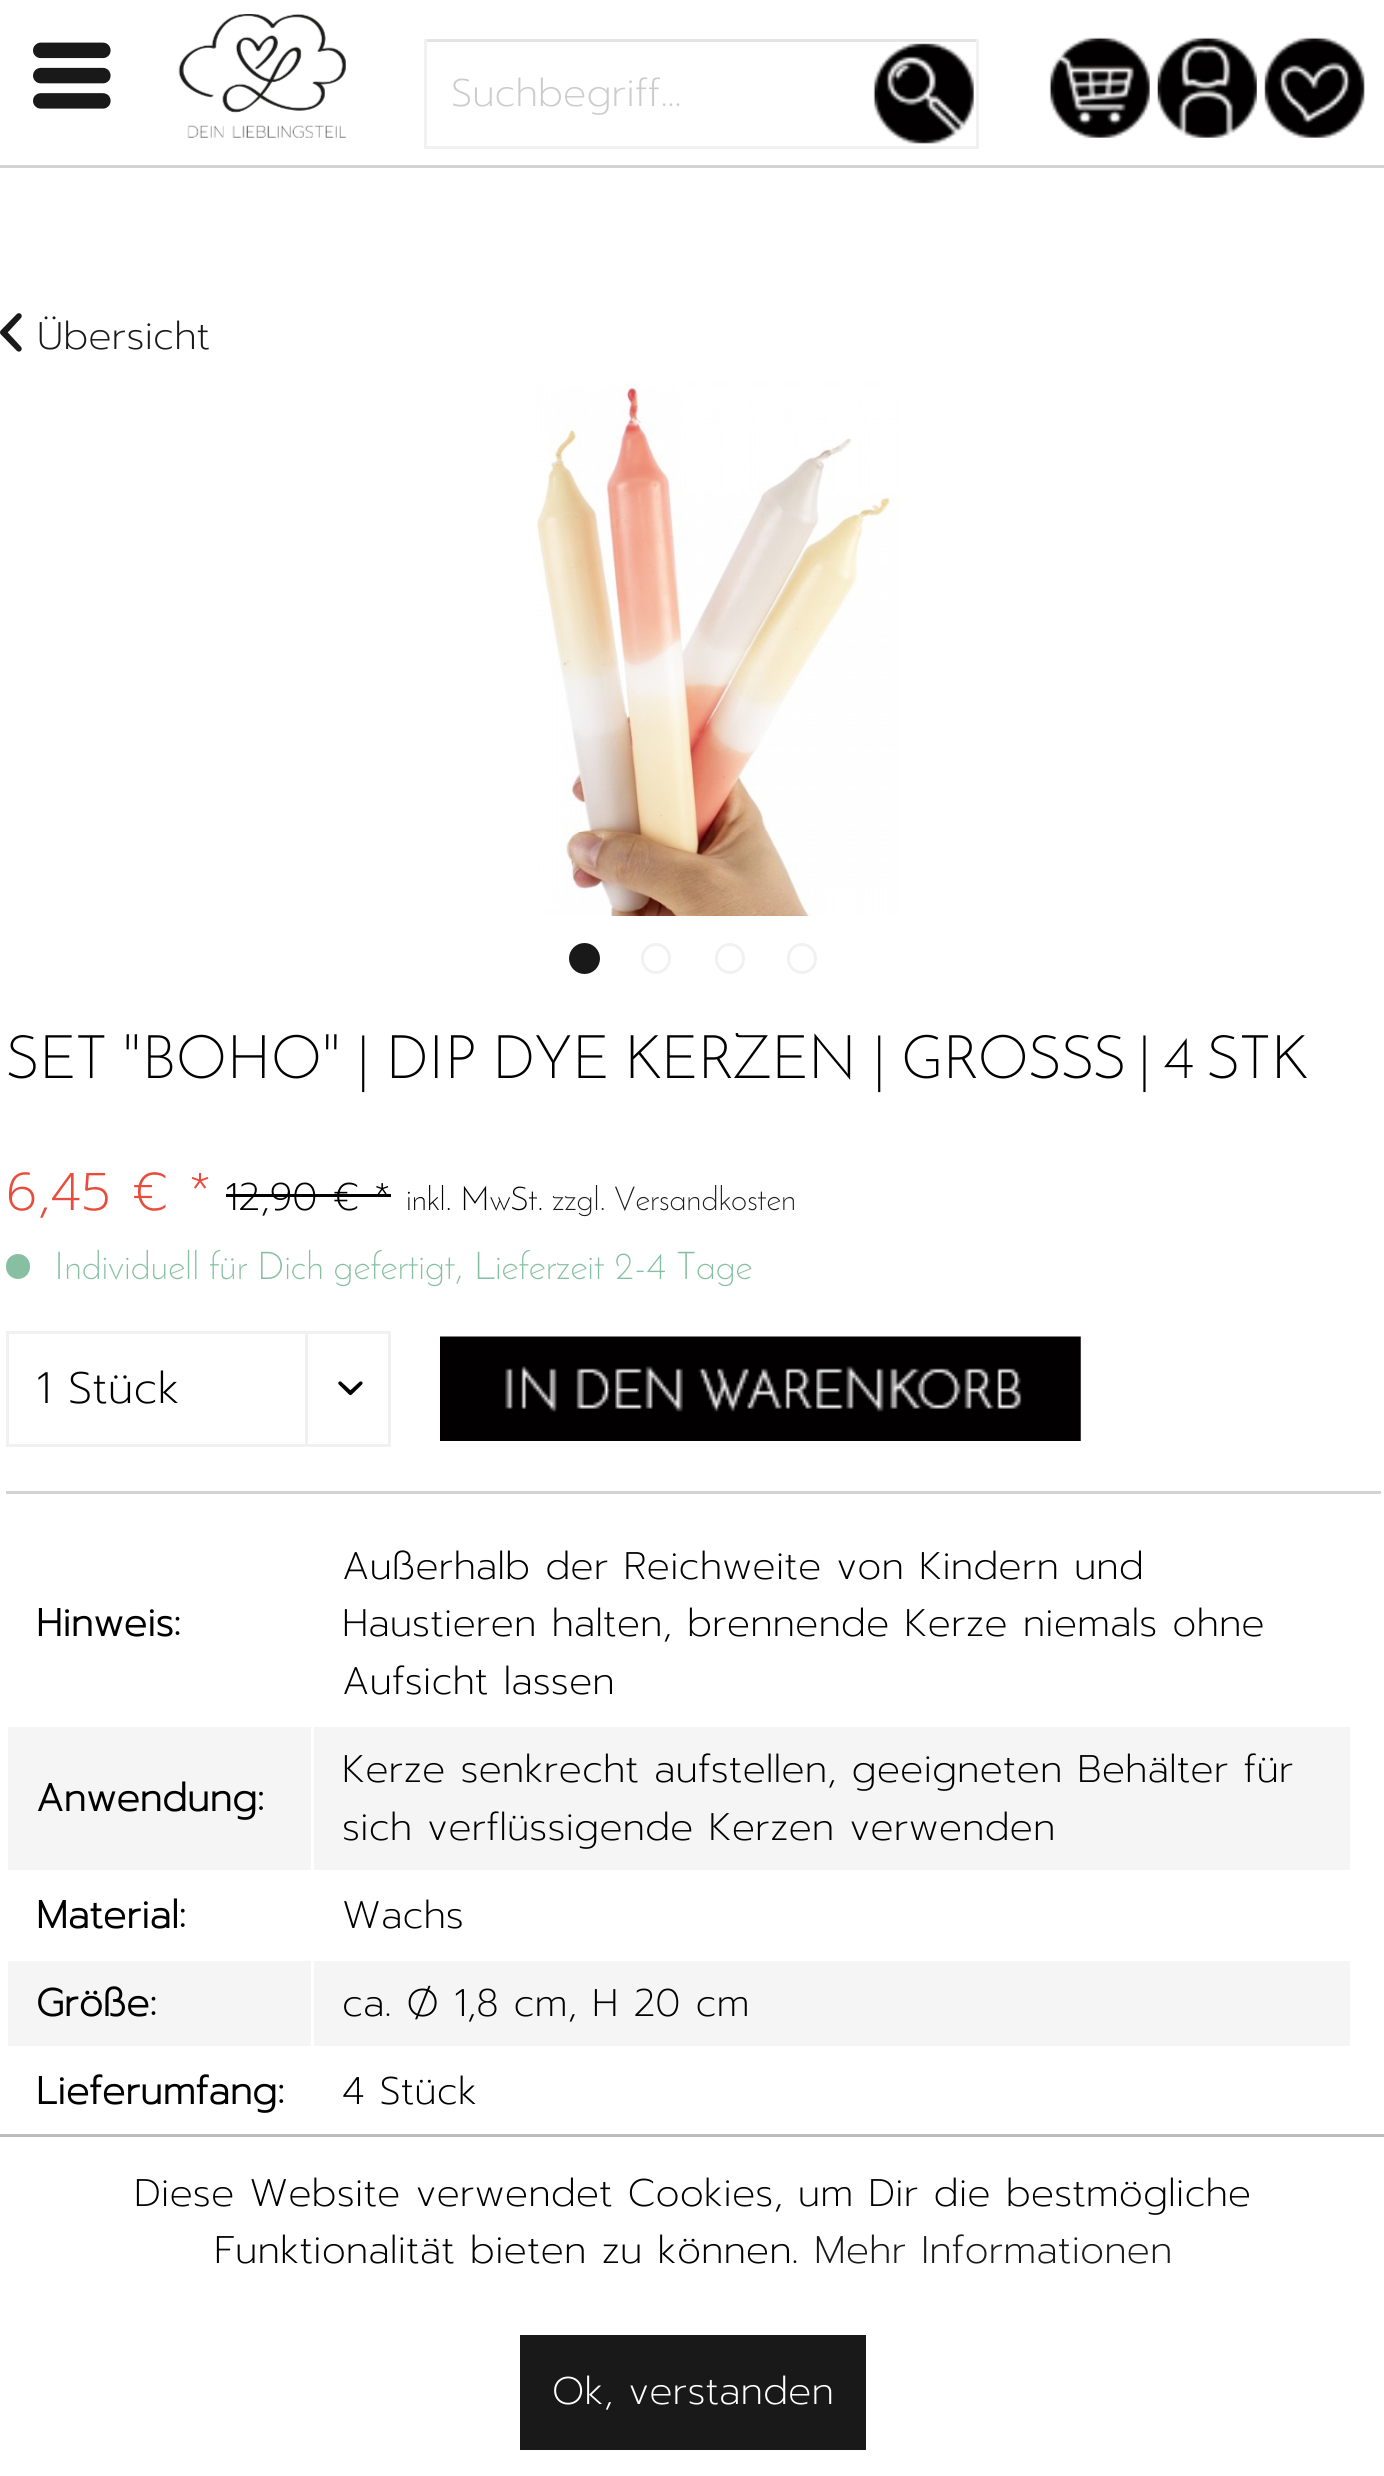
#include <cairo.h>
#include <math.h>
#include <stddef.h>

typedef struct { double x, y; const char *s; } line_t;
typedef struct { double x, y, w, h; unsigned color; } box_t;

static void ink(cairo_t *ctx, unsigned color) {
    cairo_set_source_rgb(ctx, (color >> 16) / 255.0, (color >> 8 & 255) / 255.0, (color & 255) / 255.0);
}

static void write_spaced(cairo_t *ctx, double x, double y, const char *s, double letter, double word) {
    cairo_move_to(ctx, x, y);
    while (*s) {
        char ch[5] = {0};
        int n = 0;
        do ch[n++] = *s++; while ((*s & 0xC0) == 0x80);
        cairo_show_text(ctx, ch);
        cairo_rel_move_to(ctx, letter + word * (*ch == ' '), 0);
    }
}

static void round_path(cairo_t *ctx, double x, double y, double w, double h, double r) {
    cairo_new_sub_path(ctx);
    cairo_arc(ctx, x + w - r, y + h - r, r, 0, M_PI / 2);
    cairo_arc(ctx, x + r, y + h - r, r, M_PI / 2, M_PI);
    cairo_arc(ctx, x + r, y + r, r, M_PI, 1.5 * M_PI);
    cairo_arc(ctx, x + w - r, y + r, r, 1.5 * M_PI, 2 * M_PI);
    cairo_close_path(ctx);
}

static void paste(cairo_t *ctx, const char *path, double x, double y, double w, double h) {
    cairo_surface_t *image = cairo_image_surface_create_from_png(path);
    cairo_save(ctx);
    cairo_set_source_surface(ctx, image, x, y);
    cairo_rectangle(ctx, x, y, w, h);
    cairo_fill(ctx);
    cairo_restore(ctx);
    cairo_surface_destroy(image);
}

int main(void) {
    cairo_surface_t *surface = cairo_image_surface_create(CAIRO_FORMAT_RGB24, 1384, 2476);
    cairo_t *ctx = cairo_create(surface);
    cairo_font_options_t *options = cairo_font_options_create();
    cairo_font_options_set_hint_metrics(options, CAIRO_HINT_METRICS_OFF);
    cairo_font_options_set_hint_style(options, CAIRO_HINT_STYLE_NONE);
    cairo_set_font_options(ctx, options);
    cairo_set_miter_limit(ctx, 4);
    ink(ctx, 0xFFFFFF);
    cairo_paint(ctx);
    ink(ctx, 0xD3D3D3);
    cairo_rectangle(ctx, 0, 165, 1384, 3);
    cairo_fill(ctx);
    paste(ctx, "media/1.png", 33, 42, 78, 67);
    paste(ctx, "media/2.png", 178, 14, 168, 124);
    {
        static const box_t items[] = {
            {424, 39, 555, 3, 0xE4E4E4},
            {976, 39, 3, 110, 0xF1F1F1},
            {424, 146, 555, 3, 0xF1F1F1},
            {424, 39, 3, 110, 0xF1F1F1},
        };
        for (size_t i = 0; i < sizeof items / sizeof *items; i++) {
            ink(ctx, items[i].color);
            cairo_rectangle(ctx, items[i].x, items[i].y, items[i].w, items[i].h);
            cairo_fill(ctx);
        }
    }
    cairo_select_font_face(ctx, "Prompt ExtraLight", CAIRO_FONT_SLANT_NORMAL, CAIRO_FONT_WEIGHT_NORMAL);
    cairo_set_font_size(ctx, 38.5);
    ink(ctx, 0xCCCCCC);
    cairo_move_to(ctx, 451, 106);
    cairo_show_text(ctx, "Suchbegriff...");
    paste(ctx, "media/3.png", 873, 43, 101, 101);
    paste(ctx, "media/4.png", 1049, 37, 101, 101);
    paste(ctx, "media/5.png", 1157, 37, 100, 101);
    paste(ctx, "media/6.png", 1264, 37, 101, 101);
    paste(ctx, "media/7.png", 0, 313, 22, 39);
    ink(ctx, 0x191919);
    cairo_move_to(ctx, 37, 349);
    cairo_show_text(ctx, "Übersicht");
    paste(ctx, "media/8.png", 535, 381, 364, 535);
    cairo_arc(ctx, 584.5, 958.5, 14, 0, 2 * M_PI);
    cairo_fill_preserve(ctx);
    cairo_set_line_width(ctx, 3);
    cairo_stroke(ctx);
    round_path(ctx, 642.5, 944.5, 27, 28, 13.5);
    ink(ctx, 0xF1F1F1);
    cairo_stroke(ctx);
    round_path(ctx, 716.5, 944.5, 27, 28, 13.5);
    cairo_stroke(ctx);
    round_path(ctx, 788.5, 944.5, 27, 28, 13.5);
    cairo_stroke(ctx);
    cairo_select_font_face(ctx, "Josefin Sans Light", CAIRO_FONT_SLANT_NORMAL, CAIRO_FONT_WEIGHT_NORMAL);
    cairo_set_font_size(ctx, 60.5);
    ink(ctx, 0x000000);
    cairo_move_to(ctx, 6, 1078);
    cairo_show_text(ctx, "SET \"BOHO\" | DIP DYE KERZEN | GROSS");
    write_spaced(ctx, 1093, 1078, "S | 4 STK", 0, -3.5);
    cairo_select_font_face(ctx, "Prompt ExtraLight", CAIRO_FONT_SLANT_NORMAL, CAIRO_FONT_WEIGHT_NORMAL);
    cairo_set_font_size(ctx, 53);
    ink(ctx, 0xE74C3C);
    cairo_move_to(ctx, 6, 1210);
    cairo_show_text(ctx, "6,45 € *");
    cairo_set_font_size(ctx, 38.5);
    ink(ctx, 0x000000);
    cairo_move_to(ctx, 225, 1210);
    cairo_show_text(ctx, "12,90 € *");
    cairo_rectangle(ctx, 226, 1194, 165, 3);
    cairo_fill(ctx);
    cairo_select_font_face(ctx, "Josefin Sans Light", CAIRO_FONT_SLANT_NORMAL, CAIRO_FONT_WEIGHT_NORMAL);
    cairo_set_font_size(ctx, 33);
    cairo_move_to(ctx, 406, 1210);
    cairo_show_text(ctx, "inkl. MwSt.");
    ink(ctx, 0x191919);
    cairo_move_to(ctx, 552, 1210);
    cairo_show_text(ctx, "zzgl. Versandkosten");
    ink(ctx, 0x87BFA3);
    round_path(ctx, 6, 1254, 24, 25, 12);
    cairo_fill(ctx);
    cairo_set_font_size(ctx, 38.5);
    cairo_move_to(ctx, 54, 1279);
    cairo_show_text(ctx, "Individuell für Dich gefertigt, Lieferzeit 2-4 Tage");
    cairo_rectangle(ctx, 7.5, 1332.5, 382, 113);
    ink(ctx, 0xF1F1F1);
    cairo_stroke(ctx);
    cairo_select_font_face(ctx, "Prompt ExtraLight", CAIRO_FONT_SLANT_NORMAL, CAIRO_FONT_WEIGHT_NORMAL);
    cairo_set_font_size(ctx, 44);
    ink(ctx, 0x000000);
    cairo_move_to(ctx, 36, 1403);
    cairo_show_text(ctx, "1 Stück");
    ink(ctx, 0xF1F1F1);
    cairo_rectangle(ctx, 305, 1334, 3, 110);
    cairo_fill(ctx);
    paste(ctx, "media/9.png", 338, 1381, 25, 15);
    paste(ctx, "media/10.png", 440, 1336, 641, 105);
    ink(ctx, 0xD3D3D3);
    cairo_rectangle(ctx, 6, 1491, 1375, 3);
    cairo_fill(ctx);
    cairo_select_font_face(ctx, "Prompt", CAIRO_FONT_SLANT_NORMAL, CAIRO_FONT_WEIGHT_BOLD);
    cairo_set_font_size(ctx, 38.5);
    ink(ctx, 0x000000);
    cairo_move_to(ctx, 36, 1636);
    cairo_show_text(ctx, "Hinweis:");
    cairo_select_font_face(ctx, "Prompt ExtraLight", CAIRO_FONT_SLANT_NORMAL, CAIRO_FONT_WEIGHT_NORMAL);
    {
        static const line_t items[] = {
            {342, 1579, "Außerhalb der Reichweite von Kindern und"},
            {342, 1636, "Haustieren halten, brennende Kerze niemals ohne"},
            {342, 1694, "Aufsicht lassen"},
        };
        for (size_t i = 0; i < sizeof items / sizeof *items; i++) {
            cairo_move_to(ctx, items[i].x, items[i].y);
            cairo_show_text(ctx, items[i].s);
        }
    }
    ink(ctx, 0xF5F5F5);
    cairo_rectangle(ctx, 8, 1727, 303, 143);
    cairo_fill(ctx);
    cairo_select_font_face(ctx, "Prompt", CAIRO_FONT_SLANT_NORMAL, CAIRO_FONT_WEIGHT_BOLD);
    ink(ctx, 0x000000);
    cairo_move_to(ctx, 36, 1811);
    cairo_show_text(ctx, "Anwendung:");
    ink(ctx, 0xF5F5F5);
    cairo_rectangle(ctx, 314, 1727, 1036, 143);
    cairo_fill(ctx);
    cairo_select_font_face(ctx, "Prompt ExtraLight", CAIRO_FONT_SLANT_NORMAL, CAIRO_FONT_WEIGHT_NORMAL);
    ink(ctx, 0x000000);
    cairo_move_to(ctx, 342, 1782);
    cairo_show_text(ctx, "Kerze senkrecht aufstellen, geeigneten Behälter für");
    cairo_move_to(ctx, 342, 1840);
    cairo_show_text(ctx, "sich verflüssigende Kerzen verwenden");
    cairo_select_font_face(ctx, "Prompt", CAIRO_FONT_SLANT_NORMAL, CAIRO_FONT_WEIGHT_BOLD);
    cairo_move_to(ctx, 36, 1928);
    cairo_show_text(ctx, "Material:");
    cairo_select_font_face(ctx, "Prompt ExtraLight", CAIRO_FONT_SLANT_NORMAL, CAIRO_FONT_WEIGHT_NORMAL);
    cairo_move_to(ctx, 342, 1928);
    cairo_show_text(ctx, "Wachs");
    ink(ctx, 0xF5F5F5);
    cairo_rectangle(ctx, 8, 1961, 303, 85);
    cairo_fill(ctx);
    cairo_select_font_face(ctx, "Prompt", CAIRO_FONT_SLANT_NORMAL, CAIRO_FONT_WEIGHT_BOLD);
    ink(ctx, 0x000000);
    cairo_move_to(ctx, 36, 2016);
    cairo_show_text(ctx, "Größe:");
    ink(ctx, 0xF5F5F5);
    cairo_rectangle(ctx, 314, 1961, 1036, 85);
    cairo_fill(ctx);
    cairo_select_font_face(ctx, "Prompt ExtraLight", CAIRO_FONT_SLANT_NORMAL, CAIRO_FONT_WEIGHT_NORMAL);
    ink(ctx, 0x000000);
    cairo_move_to(ctx, 342, 2016);
    cairo_show_text(ctx, "ca. Ø 1,8 cm, H 20 cm");
    cairo_select_font_face(ctx, "Prompt", CAIRO_FONT_SLANT_NORMAL, CAIRO_FONT_WEIGHT_BOLD);
    cairo_move_to(ctx, 36, 2104);
    cairo_show_text(ctx, "Lieferumfang:");
    cairo_select_font_face(ctx, "Prompt ExtraLight", CAIRO_FONT_SLANT_NORMAL, CAIRO_FONT_WEIGHT_NORMAL);
    cairo_move_to(ctx, 342, 2104);
    cairo_show_text(ctx, "4 Stück");
    ink(ctx, 0xBCBCBC);
    cairo_rectangle(ctx, 0, 2134, 1384, 3);
    cairo_fill(ctx);
    ink(ctx, 0x000000);
    cairo_move_to(ctx, 134, 2206);
    cairo_show_text(ctx, "Diese Website verwendet Cookies, um Dir die bestmögliche");
    cairo_move_to(ctx, 214, 2263);
    cairo_show_text(ctx, "Funktionalität bieten zu können.");
    ink(ctx, 0x191919);
    cairo_move_to(ctx, 814, 2263);
    cairo_show_text(ctx, "Mehr Informationen");
    cairo_rectangle(ctx, 520, 2335, 346, 115);
    cairo_fill(ctx);
    ink(ctx, 0xFFFFFF);
    cairo_move_to(ctx, 552, 2404);
    cairo_show_text(ctx, "Ok, verstanden");
    cairo_surface_write_to_png(surface, "image.png");
    cairo_font_options_destroy(options);
    cairo_destroy(ctx);
    cairo_surface_destroy(surface);
    return 0;
}
